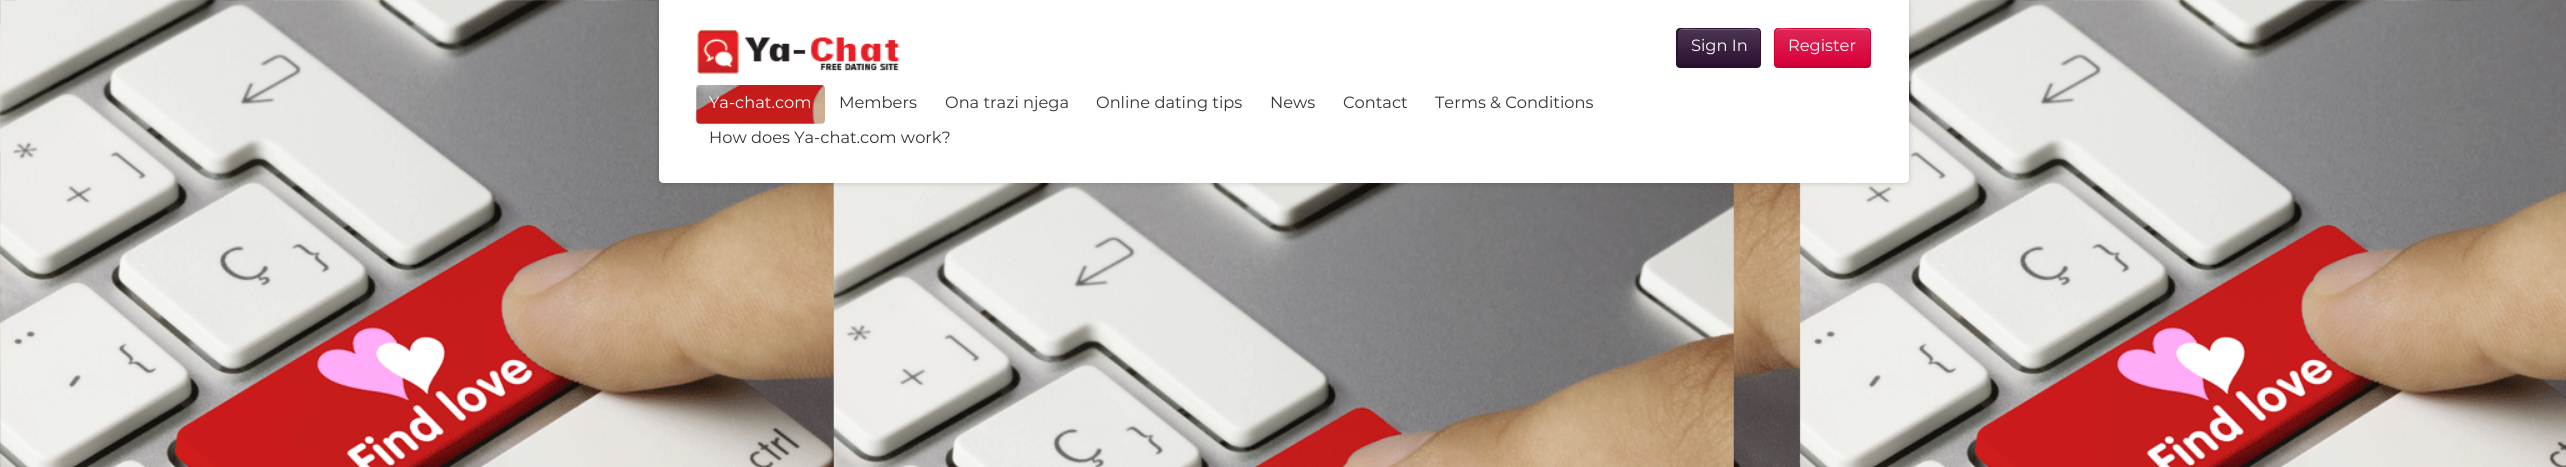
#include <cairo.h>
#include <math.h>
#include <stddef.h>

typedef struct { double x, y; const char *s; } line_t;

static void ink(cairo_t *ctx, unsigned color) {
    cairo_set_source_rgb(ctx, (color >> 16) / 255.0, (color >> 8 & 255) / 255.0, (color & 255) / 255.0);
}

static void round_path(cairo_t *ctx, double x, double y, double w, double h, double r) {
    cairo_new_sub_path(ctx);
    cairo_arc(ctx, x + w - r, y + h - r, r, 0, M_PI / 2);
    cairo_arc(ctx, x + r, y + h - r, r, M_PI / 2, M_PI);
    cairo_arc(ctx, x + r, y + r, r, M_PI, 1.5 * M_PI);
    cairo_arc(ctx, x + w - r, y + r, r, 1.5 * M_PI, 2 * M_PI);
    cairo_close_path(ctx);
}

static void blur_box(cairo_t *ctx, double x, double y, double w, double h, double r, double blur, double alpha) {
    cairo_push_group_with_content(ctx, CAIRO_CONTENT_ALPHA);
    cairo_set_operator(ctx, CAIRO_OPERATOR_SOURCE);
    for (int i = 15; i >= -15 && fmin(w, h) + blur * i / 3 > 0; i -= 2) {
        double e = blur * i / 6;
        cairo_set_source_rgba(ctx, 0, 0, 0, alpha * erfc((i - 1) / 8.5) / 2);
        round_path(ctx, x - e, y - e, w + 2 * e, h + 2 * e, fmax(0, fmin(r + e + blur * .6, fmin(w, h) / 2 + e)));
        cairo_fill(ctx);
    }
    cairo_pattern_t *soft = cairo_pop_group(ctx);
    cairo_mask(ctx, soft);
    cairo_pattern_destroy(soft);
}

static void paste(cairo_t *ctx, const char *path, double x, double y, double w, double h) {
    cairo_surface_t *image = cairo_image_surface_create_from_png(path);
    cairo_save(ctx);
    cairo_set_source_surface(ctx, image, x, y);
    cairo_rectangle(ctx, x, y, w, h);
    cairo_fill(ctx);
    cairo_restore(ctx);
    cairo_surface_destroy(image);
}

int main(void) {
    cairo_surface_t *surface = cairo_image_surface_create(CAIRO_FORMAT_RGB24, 2566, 467);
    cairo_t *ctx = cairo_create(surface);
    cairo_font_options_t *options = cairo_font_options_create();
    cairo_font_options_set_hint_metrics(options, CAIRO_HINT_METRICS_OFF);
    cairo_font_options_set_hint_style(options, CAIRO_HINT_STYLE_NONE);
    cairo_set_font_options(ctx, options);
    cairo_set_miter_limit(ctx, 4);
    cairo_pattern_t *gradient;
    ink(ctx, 0xFFFFFF);
    cairo_paint(ctx);
    paste(ctx, "media/1.png", 0, 0, 2566, 467);
    paste(ctx, "media/4.png", 833, 183, 901, 284);
    ink(ctx, 0x000000);
    blur_box(ctx, 659, 0, 1250, 183, 4, 3, 0.2);
    ink(ctx, 0xFFFFFF);
    cairo_new_path(ctx);
    cairo_move_to(ctx, 659, 0);
    cairo_line_to(ctx, 1909, 0);
    cairo_line_to(ctx, 1909, 179);
    cairo_curve_to(ctx, 1909, 181, 1907, 183, 1905, 183);
    cairo_line_to(ctx, 663, 183);
    cairo_curve_to(ctx, 661, 183, 659, 181, 659, 179);
    cairo_close_path(ctx);
    cairo_fill(ctx);
    paste(ctx, "media/2.png", 697, 29, 202, 45);
    ink(ctx, 0x2C1133);
    round_path(ctx, 1676, 28, 85, 40, 4);
    cairo_fill(ctx);
    cairo_set_source_rgba(ctx, 0, 0, 0, 0.05);
    cairo_new_path(ctx);
    cairo_move_to(ctx, 1680, 28);
    cairo_line_to(ctx, 1677, 29);
    cairo_line_to(ctx, 1679, 30);
    cairo_line_to(ctx, 1680, 29);
    cairo_line_to(ctx, 1693, 29);
    cairo_curve_to(ctx, 1700, 29, 1758, 28, 1759, 30);
    cairo_line_to(ctx, 1760, 29);
    cairo_line_to(ctx, 1758, 28);
    cairo_close_path(ctx);
    cairo_fill(ctx);
    cairo_new_path(ctx);
    cairo_move_to(ctx, 1760.5, 66);
    cairo_curve_to(ctx, 1761.5, 64, 1761, 60, 1761, 58.5);
    cairo_line_to(ctx, 1761, 30);
    cairo_line_to(ctx, 1760, 28.5);
    cairo_line_to(ctx, 1759, 29.5);
    cairo_line_to(ctx, 1760, 31);
    cairo_line_to(ctx, 1760, 64);
    cairo_line_to(ctx, 1759.5, 64.5);
    cairo_close_path(ctx);
    cairo_fill(ctx);
    cairo_set_source_rgba(ctx, 0, 0, 0, 0.1);
    cairo_new_path(ctx);
    cairo_move_to(ctx, 1678, 68);
    cairo_line_to(ctx, 1677, 66);
    cairo_line_to(ctx, 1678, 64);
    cairo_line_to(ctx, 1680, 65);
    cairo_line_to(ctx, 1758, 65);
    cairo_line_to(ctx, 1760, 64);
    cairo_line_to(ctx, 1761, 66);
    cairo_line_to(ctx, 1760, 68);
    cairo_close_path(ctx);
    cairo_fill(ctx);
    cairo_set_source_rgba(ctx, 0, 0, 0, 0.05);
    cairo_new_path(ctx);
    cairo_move_to(ctx, 1676, 30);
    cairo_line_to(ctx, 1677.5, 28.5);
    cairo_line_to(ctx, 1678.5, 30);
    cairo_line_to(ctx, 1678, 31);
    cairo_line_to(ctx, 1678, 64);
    cairo_line_to(ctx, 1677, 66.5);
    cairo_line_to(ctx, 1676, 65.5);
    cairo_close_path(ctx);
    cairo_fill(ctx);
    gradient = cairo_pattern_create_linear(1719, 29, 1719, 65);
    cairo_pattern_add_color_stop_rgba(gradient, 0, 1, 1, 1, 0.15);
    cairo_pattern_add_color_stop_rgba(gradient, 1, 1, 1, 1, 0);
    cairo_set_source(ctx, gradient);
    cairo_pattern_destroy(gradient);
    round_path(ctx, 1678, 29, 82, 36, 4);
    cairo_fill(ctx);
    cairo_set_source_rgba(ctx, 1, 1, 1, 0.2);
    cairo_new_path(ctx);
    cairo_move_to(ctx, 1681, 30);
    cairo_line_to(ctx, 1756, 30);
    cairo_curve_to(ctx, 1758, 30, 1760, 32, 1760, 34);
    cairo_curve_to(ctx, 1760, 26, 1749, 29, 1744, 29);
    cairo_line_to(ctx, 1694, 29);
    cairo_curve_to(ctx, 1689, 29, 1678, 26, 1678, 34);
    cairo_curve_to(ctx, 1678, 32, 1679, 30, 1681, 30);
    cairo_close_path(ctx);
    cairo_fill(ctx);
    cairo_select_font_face(ctx, "Montserrat Thin", CAIRO_FONT_SLANT_NORMAL, CAIRO_FONT_WEIGHT_NORMAL);
    cairo_set_font_size(ctx, 16.25);
    ink(ctx, 0xFFFFFF);
    cairo_move_to(ctx, 1691, 51);
    cairo_show_text(ctx, "Sign In");
    ink(ctx, 0xD80039);
    round_path(ctx, 1774, 28, 97, 40, 4);
    cairo_fill(ctx);
    cairo_set_source_rgba(ctx, 0, 0, 0, 0.05);
    cairo_new_path(ctx);
    cairo_move_to(ctx, 1778, 28);
    cairo_line_to(ctx, 1775, 29);
    cairo_line_to(ctx, 1776, 30);
    cairo_line_to(ctx, 1778, 29);
    cairo_line_to(ctx, 1868, 29);
    cairo_line_to(ctx, 1869, 30);
    cairo_line_to(ctx, 1870, 29);
    cairo_line_to(ctx, 1868, 28);
    cairo_close_path(ctx);
    cairo_fill(ctx);
    cairo_new_path(ctx);
    cairo_move_to(ctx, 1870.5, 66);
    cairo_curve_to(ctx, 1871.5, 64, 1871, 60, 1871, 58.5);
    cairo_line_to(ctx, 1871, 30);
    cairo_line_to(ctx, 1870, 28.5);
    cairo_line_to(ctx, 1869, 29.5);
    cairo_line_to(ctx, 1870, 31);
    cairo_line_to(ctx, 1870, 64);
    cairo_line_to(ctx, 1869.5, 64.5);
    cairo_close_path(ctx);
    cairo_fill(ctx);
    cairo_set_source_rgba(ctx, 0, 0, 0, 0.1);
    cairo_new_path(ctx);
    cairo_move_to(ctx, 1776, 68);
    cairo_line_to(ctx, 1774, 66);
    cairo_line_to(ctx, 1775, 64);
    cairo_line_to(ctx, 1778, 65);
    cairo_line_to(ctx, 1868, 65);
    cairo_line_to(ctx, 1870, 64);
    cairo_line_to(ctx, 1871, 66);
    cairo_line_to(ctx, 1870, 68);
    cairo_close_path(ctx);
    cairo_fill(ctx);
    cairo_set_source_rgba(ctx, 0, 0, 0, 0.05);
    cairo_new_path(ctx);
    cairo_move_to(ctx, 1775, 28.5);
    cairo_line_to(ctx, 1774, 30.5);
    cairo_line_to(ctx, 1774, 58.5);
    cairo_curve_to(ctx, 1774, 60, 1773.5, 64, 1774.5, 66);
    cairo_line_to(ctx, 1775.5, 64.5);
    cairo_line_to(ctx, 1775, 64);
    cairo_line_to(ctx, 1775, 30.5);
    cairo_line_to(ctx, 1776, 29.5);
    cairo_close_path(ctx);
    cairo_fill(ctx);
    gradient = cairo_pattern_create_linear(1823, 29, 1823, 65);
    cairo_pattern_add_color_stop_rgba(gradient, 0, 1, 1, 1, 0.15);
    cairo_pattern_add_color_stop_rgba(gradient, 1, 1, 1, 1, 0);
    cairo_set_source(ctx, gradient);
    cairo_pattern_destroy(gradient);
    round_path(ctx, 1775, 29, 95, 36, 4);
    cairo_fill(ctx);
    cairo_set_source_rgba(ctx, 1, 1, 1, 0.2);
    cairo_new_path(ctx);
    cairo_move_to(ctx, 1779, 30);
    cairo_line_to(ctx, 1866, 30);
    cairo_curve_to(ctx, 1868, 30, 1870, 32, 1870, 34);
    cairo_curve_to(ctx, 1870, 25, 1856, 29, 1852, 29);
    cairo_line_to(ctx, 1794, 29);
    cairo_curve_to(ctx, 1789, 29, 1775, 25, 1775, 34);
    cairo_curve_to(ctx, 1775, 32, 1777, 30, 1779, 30);
    cairo_close_path(ctx);
    cairo_fill(ctx);
    ink(ctx, 0xFFFFFF);
    cairo_move_to(ctx, 1788, 51);
    cairo_show_text(ctx, "Register");
    paste(ctx, "media/3.png", 696, 85, 129, 39);
    cairo_move_to(ctx, 709, 108);
    cairo_show_text(ctx, "Ya-chat.com");
    ink(ctx, 0x333333);
    {
        static const line_t items[] = {
            {839, 108, "Members"},
            {945, 108, "Ona trazi njega"},
            {1096, 108, "Online dating tips"},
            {1270, 108, "News"},
            {1343, 108, "Contact"},
            {1435, 108, "Terms & Conditions"},
            {709, 143, "How does Ya-chat.com work?"},
        };
        for (size_t i = 0; i < sizeof items / sizeof *items; i++) {
            cairo_move_to(ctx, items[i].x, items[i].y);
            cairo_show_text(ctx, items[i].s);
        }
    }
    cairo_surface_write_to_png(surface, "image.png");
    cairo_font_options_destroy(options);
    cairo_destroy(ctx);
    cairo_surface_destroy(surface);
    return 0;
}
